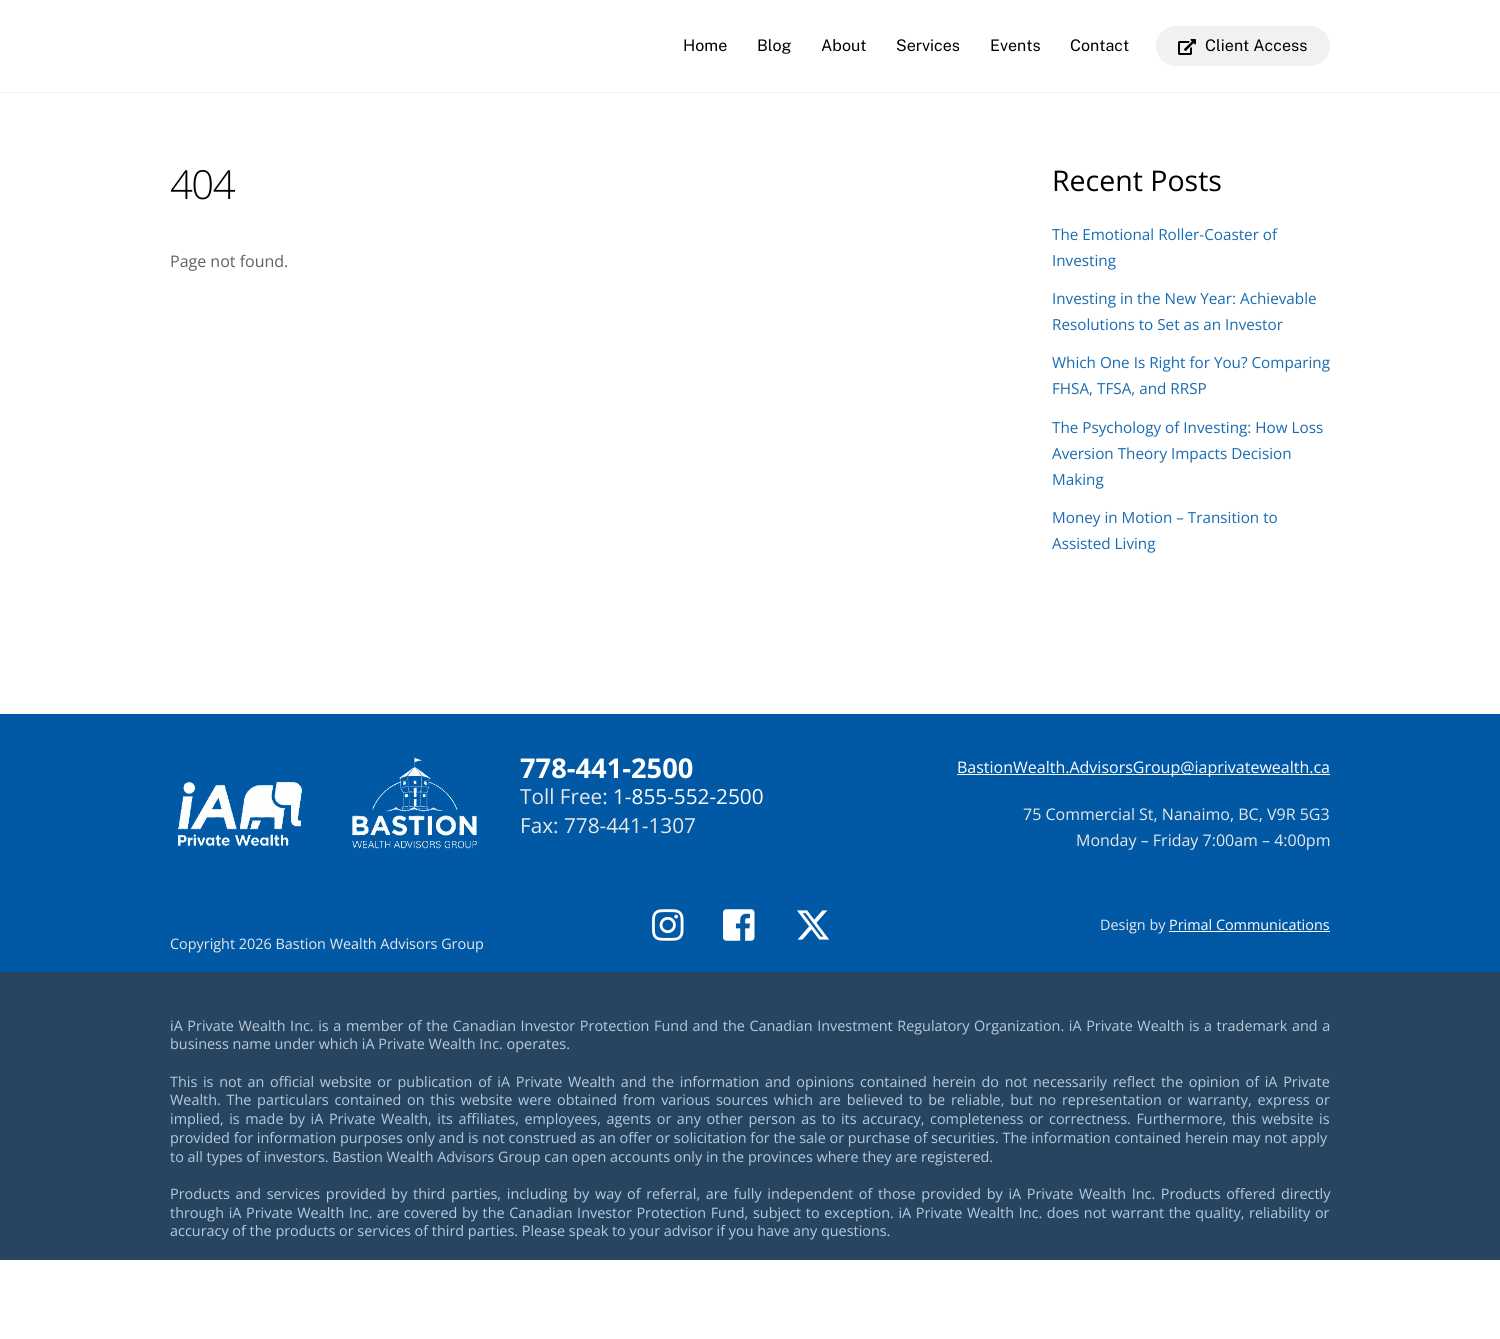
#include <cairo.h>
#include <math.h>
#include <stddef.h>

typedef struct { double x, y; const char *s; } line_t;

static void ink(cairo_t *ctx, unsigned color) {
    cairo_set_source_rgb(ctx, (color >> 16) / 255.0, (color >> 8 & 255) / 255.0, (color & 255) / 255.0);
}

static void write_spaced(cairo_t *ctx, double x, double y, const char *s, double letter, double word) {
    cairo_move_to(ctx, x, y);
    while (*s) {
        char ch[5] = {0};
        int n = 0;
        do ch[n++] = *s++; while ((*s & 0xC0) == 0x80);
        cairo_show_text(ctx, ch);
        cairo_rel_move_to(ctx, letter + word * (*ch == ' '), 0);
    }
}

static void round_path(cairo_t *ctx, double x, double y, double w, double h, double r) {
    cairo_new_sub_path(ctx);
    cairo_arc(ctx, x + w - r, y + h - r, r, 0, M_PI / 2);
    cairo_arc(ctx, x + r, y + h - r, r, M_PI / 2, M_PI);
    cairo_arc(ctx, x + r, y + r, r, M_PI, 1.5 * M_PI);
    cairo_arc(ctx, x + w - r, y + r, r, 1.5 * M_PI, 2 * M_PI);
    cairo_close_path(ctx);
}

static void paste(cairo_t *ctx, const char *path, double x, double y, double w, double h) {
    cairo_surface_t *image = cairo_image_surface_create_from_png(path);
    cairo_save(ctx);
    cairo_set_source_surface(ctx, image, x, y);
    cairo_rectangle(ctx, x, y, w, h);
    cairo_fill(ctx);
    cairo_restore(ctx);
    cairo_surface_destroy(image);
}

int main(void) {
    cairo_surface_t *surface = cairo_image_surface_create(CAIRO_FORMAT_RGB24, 1500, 1339);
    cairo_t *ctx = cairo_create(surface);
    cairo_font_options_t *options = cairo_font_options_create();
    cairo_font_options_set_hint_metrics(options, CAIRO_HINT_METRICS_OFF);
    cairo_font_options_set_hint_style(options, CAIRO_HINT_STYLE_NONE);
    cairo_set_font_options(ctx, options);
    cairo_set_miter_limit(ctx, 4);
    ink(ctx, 0xFFFFFF);
    cairo_paint(ctx);
    ink(ctx, 0xF2F2F2);
    cairo_rectangle(ctx, 0, 92, 1500, 1);
    cairo_fill(ctx);
    cairo_select_font_face(ctx, "Public Sans", CAIRO_FONT_SLANT_NORMAL, CAIRO_FONT_WEIGHT_NORMAL);
    cairo_set_font_size(ctx, 16);
    ink(ctx, 0x000000);
    {
        static const line_t items[] = {
            {683, 51, "Home"},
            {757, 51, "Blog"},
            {821, 51, "About"},
            {896, 51, "Services"},
            {990, 51, "Events"},
            {1070, 51, "Contact"},
        };
        for (size_t i = 0; i < sizeof items / sizeof *items; i++) {
            cairo_move_to(ctx, items[i].x, items[i].y);
            cairo_show_text(ctx, items[i].s);
        }
    }
    ink(ctx, 0xF1F1F1);
    round_path(ctx, 1156, 26, 174, 40, 20);
    cairo_fill(ctx);
    paste(ctx, "media/1.png", 1178, 39, 18, 16);
    ink(ctx, 0x000000);
    cairo_move_to(ctx, 1205, 51);
    cairo_show_text(ctx, "Client Access");
    cairo_select_font_face(ctx, "Open Sans Light", CAIRO_FONT_SLANT_NORMAL, CAIRO_FONT_WEIGHT_NORMAL);
    cairo_set_font_size(ctx, 40);
    write_spaced(ctx, 170, 199, "404", -1.5, 0);
    cairo_select_font_face(ctx, "Open Sans", CAIRO_FONT_SLANT_NORMAL, CAIRO_FONT_WEIGHT_NORMAL);
    cairo_set_font_size(ctx, 16);
    ink(ctx, 0x606060);
    cairo_move_to(ctx, 170, 267);
    cairo_show_text(ctx, "Page not found.");
    cairo_set_font_size(ctx, 28.5);
    ink(ctx, 0x000000);
    cairo_move_to(ctx, 1052, 191);
    cairo_show_text(ctx, "Recent Posts");
    cairo_set_font_size(ctx, 15.25);
    ink(ctx, 0x186BB1);
    {
        static const line_t items[] = {
            {1052, 240, "The Emotional Roller-Coaster of"},
            {1052, 266, "Investing"},
            {1052, 304, "Investing in the New Year: Achievable"},
            {1052, 330, "Resolutions to Set as an Investor"},
            {1052, 368, "Which One Is Right for You? Comparing"},
            {1052, 394, "FHSA, TFSA, and RRSP"},
            {1052, 433, "The Psychology of Investing: How Loss"},
            {1052, 459, "Aversion Theory Impacts Decision"},
            {1052, 485, "Making"},
            {1052, 523, "Money in Motion – Transition to"},
            {1052, 549, "Assisted Living"},
        };
        for (size_t i = 0; i < sizeof items / sizeof *items; i++) {
            cairo_move_to(ctx, items[i].x, items[i].y);
            cairo_show_text(ctx, items[i].s);
        }
    }
    ink(ctx, 0x0159A6);
    cairo_rectangle(ctx, 0, 714, 1500, 258);
    cairo_fill(ctx);
    paste(ctx, "media/2.png", 178, 757, 299, 92);
    cairo_select_font_face(ctx, "Open Sans", CAIRO_FONT_SLANT_NORMAL, CAIRO_FONT_WEIGHT_BOLD);
    cairo_set_font_size(ctx, 27.25);
    ink(ctx, 0xFFFFFF);
    cairo_move_to(ctx, 520, 778);
    cairo_show_text(ctx, "778-441-2500");
    cairo_select_font_face(ctx, "Open Sans", CAIRO_FONT_SLANT_NORMAL, CAIRO_FONT_WEIGHT_NORMAL);
    cairo_set_font_size(ctx, 20.75);
    ink(ctx, 0xE8E8E8);
    cairo_move_to(ctx, 520, 804);
    cairo_show_text(ctx, "Toll Free:");
    ink(ctx, 0xFFFFFF);
    cairo_move_to(ctx, 613, 804);
    cairo_show_text(ctx, "1-855-552-2500");
    ink(ctx, 0xE8E8E8);
    cairo_move_to(ctx, 520, 833);
    cairo_show_text(ctx, "Fax: 778-441-1307");
    ink(ctx, 0xFFFFFF);
    cairo_rectangle(ctx, 957, 774, 373, 1);
    cairo_fill(ctx);
    cairo_set_font_size(ctx, 16);
    cairo_move_to(ctx, 957, 773);
    cairo_show_text(ctx, "BastionWealth.AdvisorsGroup@iaprivatewealth.ca");
    ink(ctx, 0xE8E8E8);
    cairo_move_to(ctx, 1023, 820);
    cairo_show_text(ctx, "75 Commercial St, Nanaimo, BC, V9R 5G3");
    cairo_move_to(ctx, 1076, 846);
    cairo_show_text(ctx, "Monday – Friday 7:00am – 4:00pm");
    cairo_set_font_size(ctx, 14.4);
    cairo_move_to(ctx, 1100, 930);
    cairo_show_text(ctx, "Design by");
    ink(ctx, 0xFFFFFF);
    cairo_move_to(ctx, 1169, 930);
    cairo_show_text(ctx, "Primal Communications");
    cairo_rectangle(ctx, 1169, 931, 161, 1);
    cairo_fill(ctx);
    paste(ctx, "media/3.png", 652, 909, 32, 32);
    paste(ctx, "media/4.png", 723, 909, 32, 32);
    paste(ctx, "media/5.png", 797, 910, 33, 30);
    ink(ctx, 0xE8E8E8);
    cairo_move_to(ctx, 170, 949);
    cairo_show_text(ctx, "Copyright 2026 Bastion Wealth Advisors Group");
    ink(ctx, 0x274561);
    cairo_rectangle(ctx, 0, 972, 1500, 288);
    cairo_fill(ctx);
    ink(ctx, 0xB8C9DB);
    write_spaced(ctx, 170, 1031, "iA Private Wealth Inc. is a member of the Canadian Investor Protection Fund and the Canadian Investment Regulatory Organization. iA Private Wealth is a trademark and a", 0, 0.85);
    cairo_move_to(ctx, 170, 1049);
    cairo_show_text(ctx, "business name under which iA Private Wealth Inc. operates.");
    write_spaced(ctx, 170, 1087, "This is not an official website or publication of iA Private Wealth and the information and opinions contained herein do not necessarily reflect the opinion of iA Private", 0, 1.95);
    write_spaced(ctx, 170, 1105, "Wealth. The particulars contained on this website were obtained from various sources which are believed to be reliable, but no representation or warranty, express or", 0, 2);
    write_spaced(ctx, 170, 1124, "implied, is made by iA Private Wealth, its affiliates, employees, agents or any other person as to its accuracy, completeness or correctness. Furthermore, this website is", 0, 1.8);
    cairo_move_to(ctx, 170, 1143);
    cairo_show_text(ctx, "provided for information purposes only and is not construed as an offer or solicitation for the sale or purchase of securities. The information contained herein may not apply");
    cairo_move_to(ctx, 170, 1162);
    cairo_show_text(ctx, "to all types of investors. Bastion Wealth Advisors Group can open accounts only in the provinces where they are registered.");
    write_spaced(ctx, 170, 1199, "Products and services provided by third parties, including by way of referral, are fully independent of those provided by iA Private Wealth Inc. Products offered directly", 0, 1.9);
    write_spaced(ctx, 170, 1218, "through iA Private Wealth Inc. are covered by the Canadian Investor Protection Fund, subject to exception. iA Private Wealth Inc. does not warrant the quality, reliability or", 0, 0.9);
    cairo_move_to(ctx, 170, 1236);
    cairo_show_text(ctx, "accuracy of the products or services of third parties. Please speak to your advisor if you have any questions.");
    cairo_surface_write_to_png(surface, "image.png");
    cairo_font_options_destroy(options);
    cairo_destroy(ctx);
    cairo_surface_destroy(surface);
    return 0;
}
